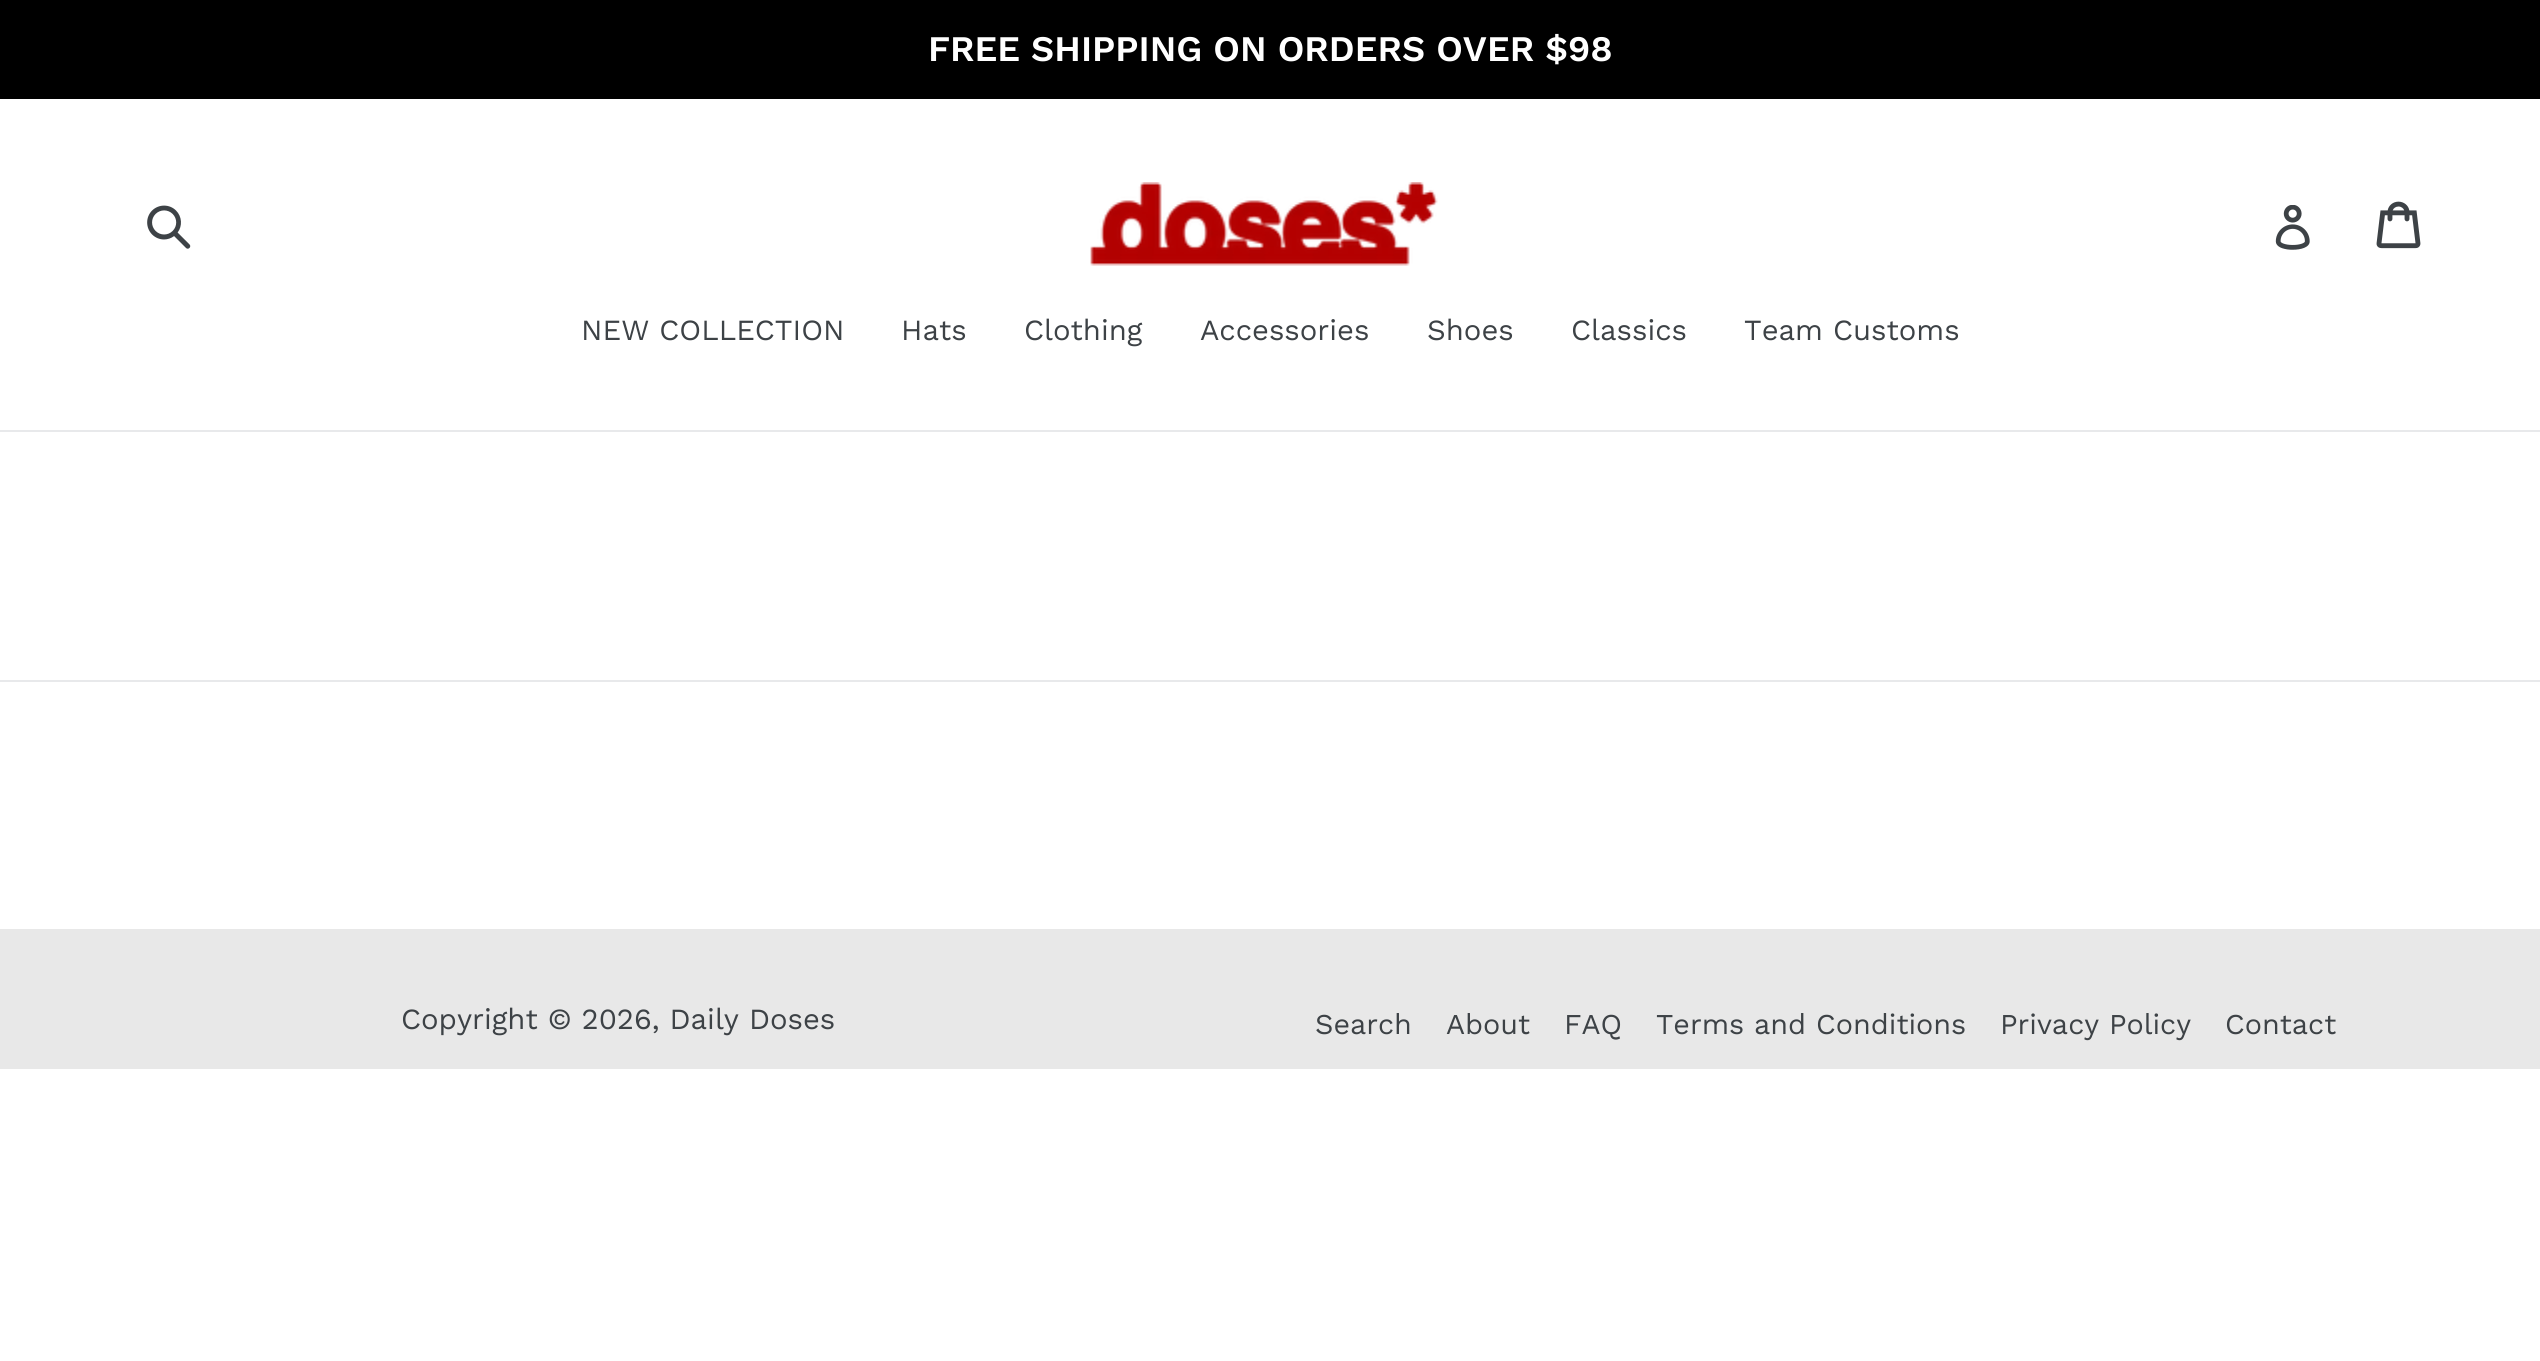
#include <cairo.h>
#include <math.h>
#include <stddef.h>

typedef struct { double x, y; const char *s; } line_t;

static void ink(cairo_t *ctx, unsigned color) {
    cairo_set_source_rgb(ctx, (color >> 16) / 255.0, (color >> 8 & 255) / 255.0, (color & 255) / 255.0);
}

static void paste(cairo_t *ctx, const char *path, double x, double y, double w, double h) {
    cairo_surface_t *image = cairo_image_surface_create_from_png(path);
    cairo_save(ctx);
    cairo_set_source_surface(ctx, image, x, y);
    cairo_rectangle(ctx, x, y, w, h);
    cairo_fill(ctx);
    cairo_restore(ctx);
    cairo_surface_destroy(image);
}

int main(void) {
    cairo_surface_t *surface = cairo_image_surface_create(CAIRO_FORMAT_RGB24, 2540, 1361);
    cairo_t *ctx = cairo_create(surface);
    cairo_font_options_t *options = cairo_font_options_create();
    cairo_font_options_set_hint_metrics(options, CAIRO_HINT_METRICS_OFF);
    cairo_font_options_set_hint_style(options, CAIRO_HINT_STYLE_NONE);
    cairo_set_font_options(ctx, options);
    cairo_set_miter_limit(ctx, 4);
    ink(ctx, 0xFFFFFF);
    cairo_paint(ctx);
    ink(ctx, 0x000000);
    cairo_rectangle(ctx, 0, 0, 2540, 99);
    cairo_fill(ctx);
    cairo_select_font_face(ctx, "Work Sans SemiBold", CAIRO_FONT_SLANT_NORMAL, CAIRO_FONT_WEIGHT_NORMAL);
    cairo_set_font_size(ctx, 36);
    ink(ctx, 0xFFFFFF);
    cairo_move_to(ctx, 928, 61);
    cairo_show_text(ctx, "FREE SHIPPING ON ORDERS OVER $98");
    paste(ctx, "media/1.png", 147, 205, 44, 44);
    paste(ctx, "media/2.png", 1090, 182, 348, 84);
    paste(ctx, "media/3.png", 2275, 205, 35, 45);
    paste(ctx, "media/4.png", 2376, 201, 45, 48);
    ink(ctx, 0xE8E9EB);
    cairo_rectangle(ctx, 0, 430, 2540, 2);
    cairo_fill(ctx);
    cairo_select_font_face(ctx, "Work Sans", CAIRO_FONT_SLANT_NORMAL, CAIRO_FONT_WEIGHT_NORMAL);
    cairo_set_font_size(ctx, 29.25);
    ink(ctx, 0x3D4246);
    {
        static const line_t items[] = {
            {581, 340, "NEW COLLECTION"},
            {901, 340, "Hats"},
            {1024, 340, "Clothing"},
            {1200, 340, "Accessories"},
            {1427, 340, "Shoes"},
            {1571, 340, "Classics"},
            {1744, 340, "Team Customs"},
        };
        for (size_t i = 0; i < sizeof items / sizeof *items; i++) {
            cairo_move_to(ctx, items[i].x, items[i].y);
            cairo_show_text(ctx, items[i].s);
        }
    }
    ink(ctx, 0xE8E9EB);
    cairo_rectangle(ctx, 0, 680, 2540, 2);
    cairo_fill(ctx);
    ink(ctx, 0xE8E8E8);
    cairo_rectangle(ctx, 0, 929, 2540, 140);
    cairo_fill(ctx);
    ink(ctx, 0x3D4246);
    cairo_move_to(ctx, 401, 1029);
    cairo_show_text(ctx, "Copyright © 2026, Daily Doses");
    cairo_set_font_size(ctx, 28.75);
    {
        static const line_t items[] = {
            {1315, 1034, "Search"},
            {1446, 1034, "About"},
            {1564, 1034, "FAQ"},
            {1656, 1034, "Terms and Conditions"},
            {2000, 1034, "Privacy Policy"},
            {2225, 1034, "Contact"},
        };
        for (size_t i = 0; i < sizeof items / sizeof *items; i++) {
            cairo_move_to(ctx, items[i].x, items[i].y);
            cairo_show_text(ctx, items[i].s);
        }
    }
    cairo_surface_write_to_png(surface, "image.png");
    cairo_font_options_destroy(options);
    cairo_destroy(ctx);
    cairo_surface_destroy(surface);
    return 0;
}
